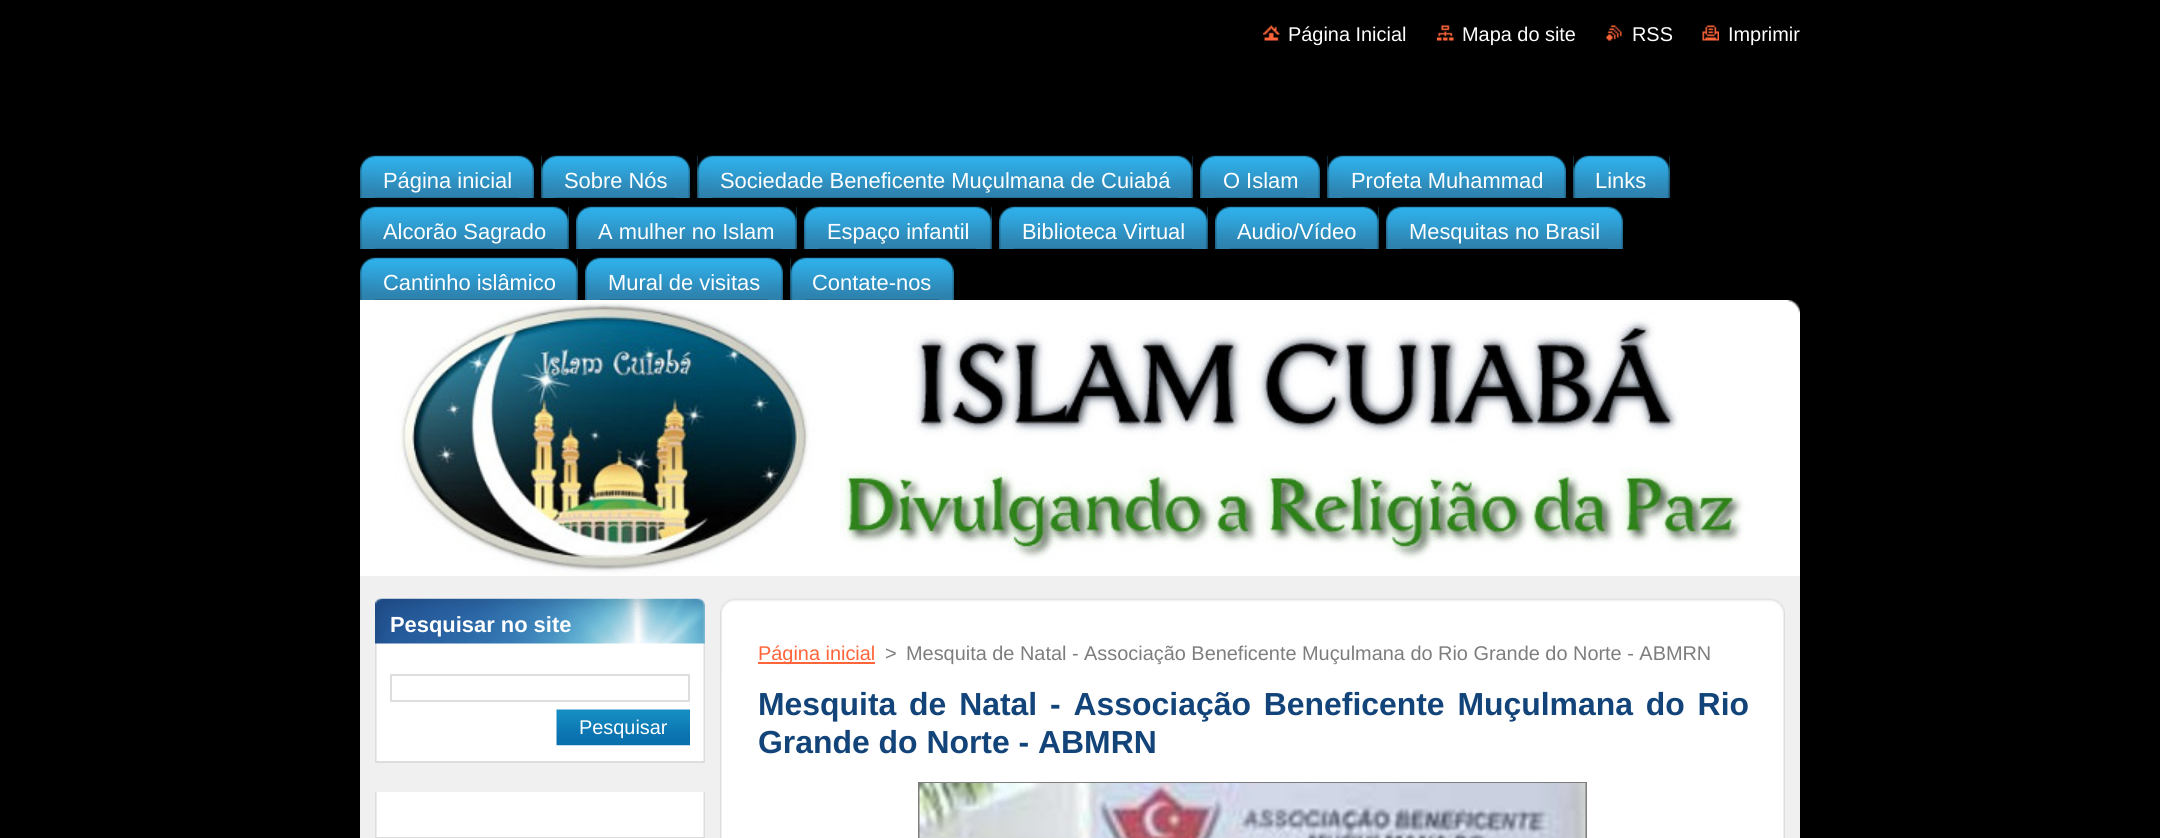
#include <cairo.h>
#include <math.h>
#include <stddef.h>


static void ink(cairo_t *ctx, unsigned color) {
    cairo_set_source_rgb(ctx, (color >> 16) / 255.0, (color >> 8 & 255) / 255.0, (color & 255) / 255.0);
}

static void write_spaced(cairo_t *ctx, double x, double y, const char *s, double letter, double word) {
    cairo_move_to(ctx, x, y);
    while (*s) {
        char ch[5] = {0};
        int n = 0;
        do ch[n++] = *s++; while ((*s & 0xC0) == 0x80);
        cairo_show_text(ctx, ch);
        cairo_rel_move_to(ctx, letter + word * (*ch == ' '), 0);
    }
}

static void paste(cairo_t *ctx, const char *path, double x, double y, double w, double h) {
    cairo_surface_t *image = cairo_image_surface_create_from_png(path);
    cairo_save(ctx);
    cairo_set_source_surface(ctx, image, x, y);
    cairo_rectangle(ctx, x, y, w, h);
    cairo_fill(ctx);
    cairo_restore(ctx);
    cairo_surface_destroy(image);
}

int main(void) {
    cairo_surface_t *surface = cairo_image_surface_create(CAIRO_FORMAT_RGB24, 2160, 838);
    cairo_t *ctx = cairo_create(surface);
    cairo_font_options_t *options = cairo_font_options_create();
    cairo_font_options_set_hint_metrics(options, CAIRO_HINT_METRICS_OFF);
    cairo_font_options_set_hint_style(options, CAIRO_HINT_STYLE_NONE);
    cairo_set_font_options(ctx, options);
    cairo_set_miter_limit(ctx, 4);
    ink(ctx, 0x000000);
    cairo_paint(ctx);
    paste(ctx, "media/1.png", 1263, 25, 17, 16);
    cairo_select_font_face(ctx, "Liberation Sans", CAIRO_FONT_SLANT_NORMAL, CAIRO_FONT_WEIGHT_NORMAL);
    cairo_set_font_size(ctx, 19.9);
    ink(ctx, 0xFFFFFF);
    cairo_move_to(ctx, 1288, 41);
    cairo_show_text(ctx, "Página Inicial");
    paste(ctx, "media/2.png", 1437, 25, 17, 16);
    cairo_move_to(ctx, 1462, 41);
    cairo_show_text(ctx, "Mapa do site");
    paste(ctx, "media/3.png", 1606, 25, 16, 16);
    cairo_move_to(ctx, 1632, 41);
    cairo_show_text(ctx, "RSS");
    paste(ctx, "media/4.png", 1702, 25, 17, 16);
    cairo_move_to(ctx, 1728, 41);
    cairo_show_text(ctx, "Imprimir");
    paste(ctx, "media/5.png", 375, 155, 144, 43);
    paste(ctx, "media/6.png", 360, 155, 15, 43);
    paste(ctx, "media/7.png", 519, 155, 15, 43);
    cairo_set_font_size(ctx, 21.9);
    cairo_move_to(ctx, 383, 188);
    cairo_show_text(ctx, "Página inicial");
    paste(ctx, "media/8.png", 541, 155, 134, 43);
    paste(ctx, "media/9.png", 541, 155, 16, 43);
    paste(ctx, "media/7.png", 675, 155, 15, 43);
    cairo_move_to(ctx, 564, 188);
    cairo_show_text(ctx, "Sobre Nós");
    paste(ctx, "media/10.png", 697, 155, 496, 43);
    paste(ctx, "media/11.png", 697, 155, 16, 43);
    paste(ctx, "media/12.png", 1177, 155, 16, 43);
    cairo_move_to(ctx, 720, 188);
    cairo_show_text(ctx, "Sociedade Beneficente Muçulmana de Cuiabá");
    paste(ctx, "media/13.png", 1215, 155, 90, 43);
    paste(ctx, "media/6.png", 1200, 155, 15, 43);
    paste(ctx, "media/7.png", 1305, 155, 15, 43);
    cairo_move_to(ctx, 1223, 188);
    cairo_show_text(ctx, "O Islam");
    paste(ctx, "media/14.png", 1327, 155, 224, 43);
    paste(ctx, "media/15.png", 1327, 155, 16, 43);
    paste(ctx, "media/7.png", 1551, 155, 15, 43);
    cairo_move_to(ctx, 1351, 188);
    cairo_show_text(ctx, "Profeta Muhammad");
    paste(ctx, "media/16.png", 1573, 155, 97, 43);
    paste(ctx, "media/17.png", 1573, 155, 16, 43);
    paste(ctx, "media/18.png", 1654, 155, 16, 43);
    cairo_move_to(ctx, 1595, 188);
    cairo_show_text(ctx, "Links");
    paste(ctx, "media/19.png", 375, 206, 194, 43);
    paste(ctx, "media/6.png", 360, 206, 15, 43);
    paste(ctx, "media/20.png", 553, 206, 16, 43);
    cairo_move_to(ctx, 383, 239);
    cairo_show_text(ctx, "Alcorão Sagrado");
    paste(ctx, "media/21.png", 591, 206, 206, 43);
    paste(ctx, "media/6.png", 576, 206, 15, 43);
    paste(ctx, "media/22.png", 781, 206, 16, 43);
    cairo_move_to(ctx, 598, 239);
    cairo_show_text(ctx, "A mulher no Islam");
    paste(ctx, "media/23.png", 819, 206, 173, 43);
    paste(ctx, "media/24.png", 804, 206, 15, 43);
    paste(ctx, "media/25.png", 976, 206, 16, 43);
    cairo_move_to(ctx, 827, 239);
    cairo_show_text(ctx, "Espaço infantil");
    paste(ctx, "media/26.png", 1014, 206, 194, 43);
    paste(ctx, "media/24.png", 999, 206, 15, 43);
    paste(ctx, "media/20.png", 1192, 206, 16, 43);
    cairo_move_to(ctx, 1022, 239);
    cairo_show_text(ctx, "Biblioteca Virtual");
    paste(ctx, "media/27.png", 1230, 206, 149, 43);
    paste(ctx, "media/6.png", 1215, 206, 15, 43);
    paste(ctx, "media/20.png", 1363, 206, 16, 43);
    cairo_move_to(ctx, 1237, 239);
    cairo_show_text(ctx, "Audio/Vídeo");
    paste(ctx, "media/28.png", 1401, 206, 207, 43);
    paste(ctx, "media/24.png", 1386, 206, 15, 43);
    paste(ctx, "media/7.png", 1608, 206, 15, 43);
    cairo_move_to(ctx, 1409, 239);
    cairo_show_text(ctx, "Mesquitas no Brasil");
    paste(ctx, "media/29.png", 375, 257, 203, 43);
    paste(ctx, "media/6.png", 360, 257, 15, 43);
    paste(ctx, "media/30.png", 562, 257, 16, 43);
    cairo_move_to(ctx, 383, 290);
    cairo_show_text(ctx, "Cantinho islâmico");
    paste(ctx, "media/31.png", 600, 257, 168, 43);
    paste(ctx, "media/6.png", 585, 257, 15, 43);
    paste(ctx, "media/7.png", 768, 257, 15, 43);
    cairo_move_to(ctx, 608, 290);
    cairo_show_text(ctx, "Mural de visitas");
    paste(ctx, "media/32.png", 790, 257, 149, 43);
    paste(ctx, "media/33.png", 790, 257, 16, 43);
    paste(ctx, "media/7.png", 939, 257, 15, 43);
    cairo_move_to(ctx, 812, 290);
    cairo_show_text(ctx, "Contate-nos");
    paste(ctx, "media/34.png", 360, 300, 1440, 276);
    paste(ctx, "media/35.png", 1787, 300, 13, 13);
    ink(ctx, 0xF0F0F0);
    cairo_rectangle(ctx, 360, 576, 1440, 262);
    cairo_fill(ctx);
    paste(ctx, "media/36.png", 375, 598, 330, 163);
    ink(ctx, 0xDDDDDD);
    cairo_rectangle(ctx, 375, 761, 330, 2);
    cairo_fill(ctx);
    paste(ctx, "media/37.png", 375, 598, 330, 46);
    cairo_select_font_face(ctx, "Liberation Sans", CAIRO_FONT_SLANT_NORMAL, CAIRO_FONT_WEIGHT_BOLD);
    ink(ctx, 0xFFFFFF);
    cairo_move_to(ctx, 390, 632);
    cairo_show_text(ctx, "Pesquisar no site");
    cairo_rectangle(ctx, 391, 675, 298, 26);
    ink(ctx, 0xDDDDDD);
    cairo_stroke(ctx);
    paste(ctx, "media/38.png", 556, 709, 134, 37);
    cairo_select_font_face(ctx, "Liberation Sans", CAIRO_FONT_SLANT_NORMAL, CAIRO_FONT_WEIGHT_NORMAL);
    cairo_set_font_size(ctx, 19.9);
    ink(ctx, 0xFFFFFF);
    cairo_move_to(ctx, 579, 734);
    cairo_show_text(ctx, "Pesquisar");
    paste(ctx, "media/39.png", 375, 792, 330, 45);
    ink(ctx, 0xDDDDDD);
    cairo_rectangle(ctx, 375, 837, 330, 1);
    cairo_fill(ctx);
    paste(ctx, "media/40.png", 720, 598, 1065, 75);
    paste(ctx, "media/41.png", 720, 673, 1065, 165);
    ink(ctx, 0xFF6539);
    cairo_rectangle(ctx, 758, 662, 117, 2);
    cairo_fill(ctx);
    cairo_move_to(ctx, 758, 660);
    cairo_show_text(ctx, "Página inicial");
    ink(ctx, 0x7D7D7D);
    cairo_move_to(ctx, 885, 660);
    cairo_show_text(ctx, ">");
    cairo_move_to(ctx, 906, 660);
    cairo_show_text(ctx, "Mesquita de Natal - Associação Beneficente Muçulmana do Rio Grande do Norte - ABMRN");
    cairo_select_font_face(ctx, "Liberation Sans", CAIRO_FONT_SLANT_NORMAL, CAIRO_FONT_WEIGHT_BOLD);
    cairo_set_font_size(ctx, 31.9);
    ink(ctx, 0x134479);
    write_spaced(ctx, 758, 715, "Mesquita de Natal - Associação Beneficente Muçulmana do Rio", 0, 4);
    cairo_move_to(ctx, 758, 753);
    cairo_show_text(ctx, "Grande do Norte - ABMRN");
    cairo_rectangle(ctx, 919, 783, 667, 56);
    ink(ctx, 0x7D7D7D);
    cairo_stroke(ctx);
    paste(ctx, "media/42.png", 919, 783, 667, 55);
    cairo_surface_write_to_png(surface, "image.png");
    cairo_font_options_destroy(options);
    cairo_destroy(ctx);
    cairo_surface_destroy(surface);
    return 0;
}
